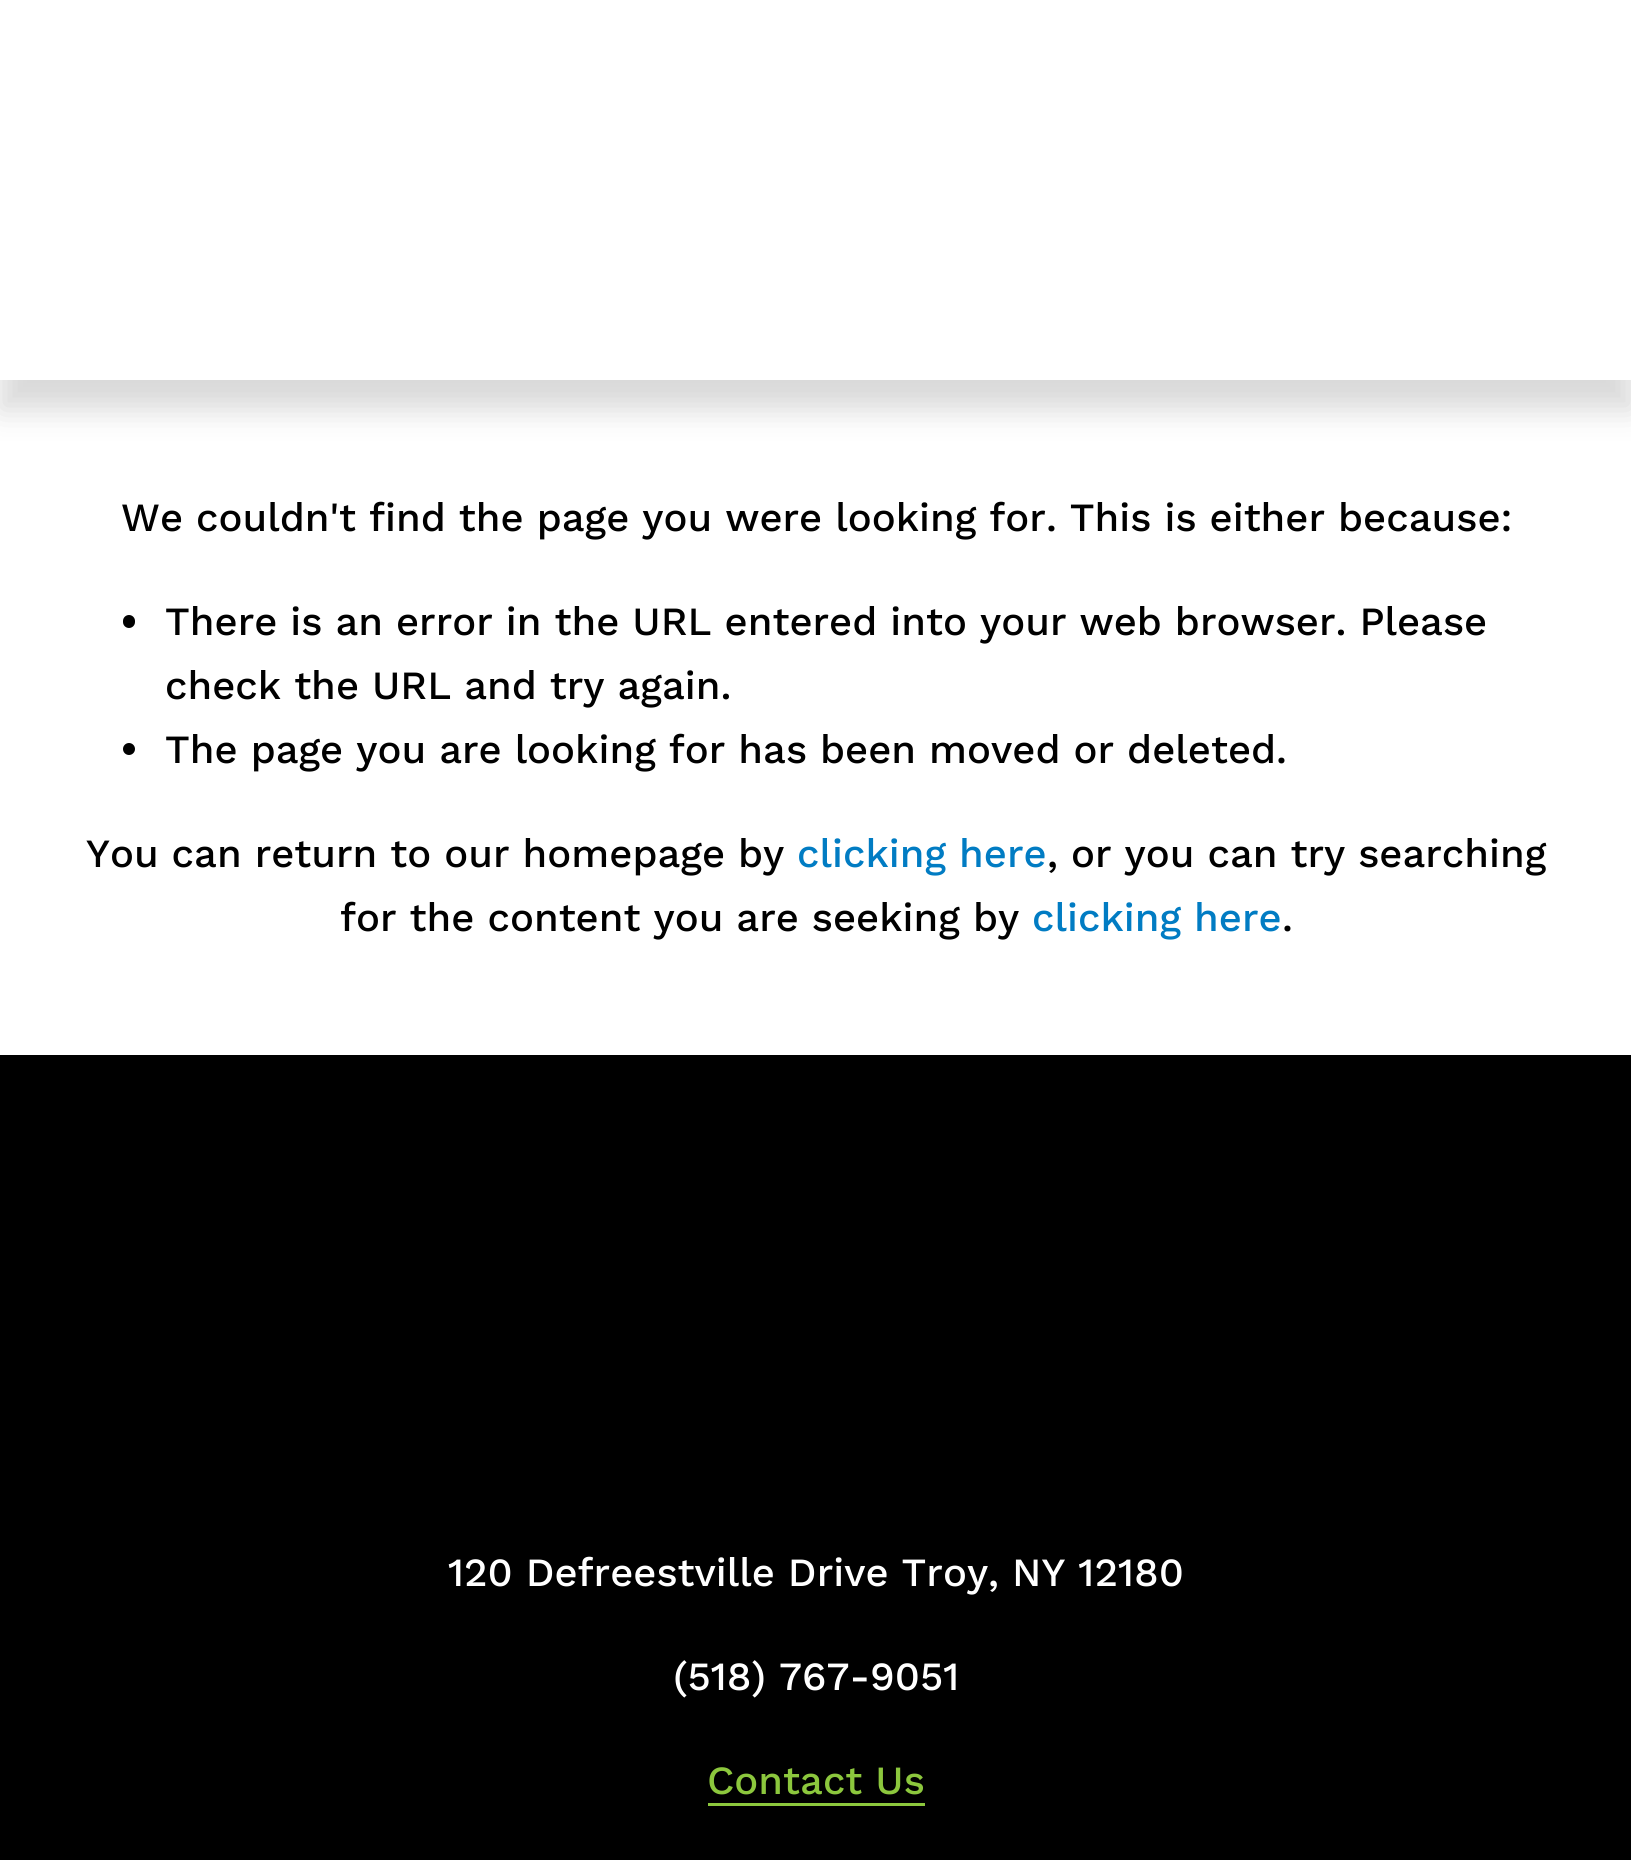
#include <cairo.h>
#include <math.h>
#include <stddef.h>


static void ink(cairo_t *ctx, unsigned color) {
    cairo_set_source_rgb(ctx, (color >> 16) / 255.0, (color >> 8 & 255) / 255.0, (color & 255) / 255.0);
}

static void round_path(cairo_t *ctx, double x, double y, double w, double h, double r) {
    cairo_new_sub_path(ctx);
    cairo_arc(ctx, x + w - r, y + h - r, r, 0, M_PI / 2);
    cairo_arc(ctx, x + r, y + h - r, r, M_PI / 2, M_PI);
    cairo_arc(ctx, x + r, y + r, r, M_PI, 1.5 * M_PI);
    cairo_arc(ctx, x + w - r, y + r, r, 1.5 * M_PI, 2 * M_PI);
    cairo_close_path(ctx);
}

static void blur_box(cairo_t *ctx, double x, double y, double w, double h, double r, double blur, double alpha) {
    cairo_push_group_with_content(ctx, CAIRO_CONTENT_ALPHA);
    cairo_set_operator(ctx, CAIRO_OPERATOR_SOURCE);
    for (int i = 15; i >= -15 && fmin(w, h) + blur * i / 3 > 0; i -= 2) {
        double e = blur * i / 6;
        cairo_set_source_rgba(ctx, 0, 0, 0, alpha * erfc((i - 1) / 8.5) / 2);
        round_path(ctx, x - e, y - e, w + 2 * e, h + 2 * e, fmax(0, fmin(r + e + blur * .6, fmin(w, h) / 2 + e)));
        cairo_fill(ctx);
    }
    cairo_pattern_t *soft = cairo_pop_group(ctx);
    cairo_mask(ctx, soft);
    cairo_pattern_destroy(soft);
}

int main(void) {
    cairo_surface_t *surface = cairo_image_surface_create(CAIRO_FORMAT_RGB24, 1631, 1860);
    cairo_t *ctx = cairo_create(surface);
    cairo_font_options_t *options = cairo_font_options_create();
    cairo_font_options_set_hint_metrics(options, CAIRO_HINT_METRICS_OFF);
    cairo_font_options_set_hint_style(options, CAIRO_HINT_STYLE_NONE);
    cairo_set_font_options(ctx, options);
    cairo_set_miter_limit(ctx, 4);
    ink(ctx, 0xFFFFFF);
    cairo_paint(ctx);
    cairo_save(ctx);
    cairo_rectangle(ctx, 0, 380, 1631, 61);
    cairo_clip(ctx);
    ink(ctx, 0xD9D9D9);
    blur_box(ctx, 0, 123, 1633, 287, 0, 15, 1);
    cairo_restore(ctx);
    cairo_select_font_face(ctx, "Work Sans Medium", CAIRO_FONT_SLANT_NORMAL, CAIRO_FONT_WEIGHT_NORMAL);
    cairo_set_font_size(ctx, 40);
    ink(ctx, 0x000000);
    cairo_move_to(ctx, 121, 531);
    cairo_show_text(ctx, "We couldn't find the page you were looking for. This is either because:");
    round_path(ctx, 123, 615, 12, 13, 6);
    cairo_fill(ctx);
    cairo_move_to(ctx, 165, 635);
    cairo_show_text(ctx, "There is an error in the URL entered into your web browser. Please");
    cairo_move_to(ctx, 165, 699);
    cairo_show_text(ctx, "check the URL and try again.");
    cairo_new_path(ctx);
    cairo_arc(ctx, 129, 749, 6, 0, 2 * M_PI);
    cairo_fill(ctx);
    cairo_move_to(ctx, 165, 763);
    cairo_show_text(ctx, "The page you are looking for has been moved or deleted.");
    cairo_move_to(ctx, 86, 867);
    cairo_show_text(ctx, "You can return to our homepage by");
    ink(ctx, 0x017CC3);
    cairo_move_to(ctx, 797, 867);
    cairo_show_text(ctx, "clicking here");
    ink(ctx, 0x000000);
    cairo_move_to(ctx, 1047, 867);
    cairo_show_text(ctx, ", or you can try searching");
    cairo_move_to(ctx, 340, 931);
    cairo_show_text(ctx, "for the content you are seeking by");
    ink(ctx, 0x017CC3);
    cairo_move_to(ctx, 1032, 931);
    cairo_show_text(ctx, "clicking here");
    ink(ctx, 0x000000);
    cairo_move_to(ctx, 1282, 931);
    cairo_show_text(ctx, ".");
    cairo_rectangle(ctx, 0, 1055, 1631, 805);
    cairo_fill(ctx);
    ink(ctx, 0xFFFFFF);
    cairo_move_to(ctx, 448, 1586);
    cairo_show_text(ctx, "120 Defreestville Drive Troy, NY 12180");
    cairo_move_to(ctx, 673, 1690);
    cairo_show_text(ctx, "(518) 767-9051");
    ink(ctx, 0x8CC73D);
    cairo_move_to(ctx, 707, 1794);
    cairo_show_text(ctx, "Contact Us");
    cairo_rectangle(ctx, 708, 1803, 217, 3);
    cairo_fill(ctx);
    cairo_surface_write_to_png(surface, "image.png");
    cairo_font_options_destroy(options);
    cairo_destroy(ctx);
    cairo_surface_destroy(surface);
    return 0;
}
